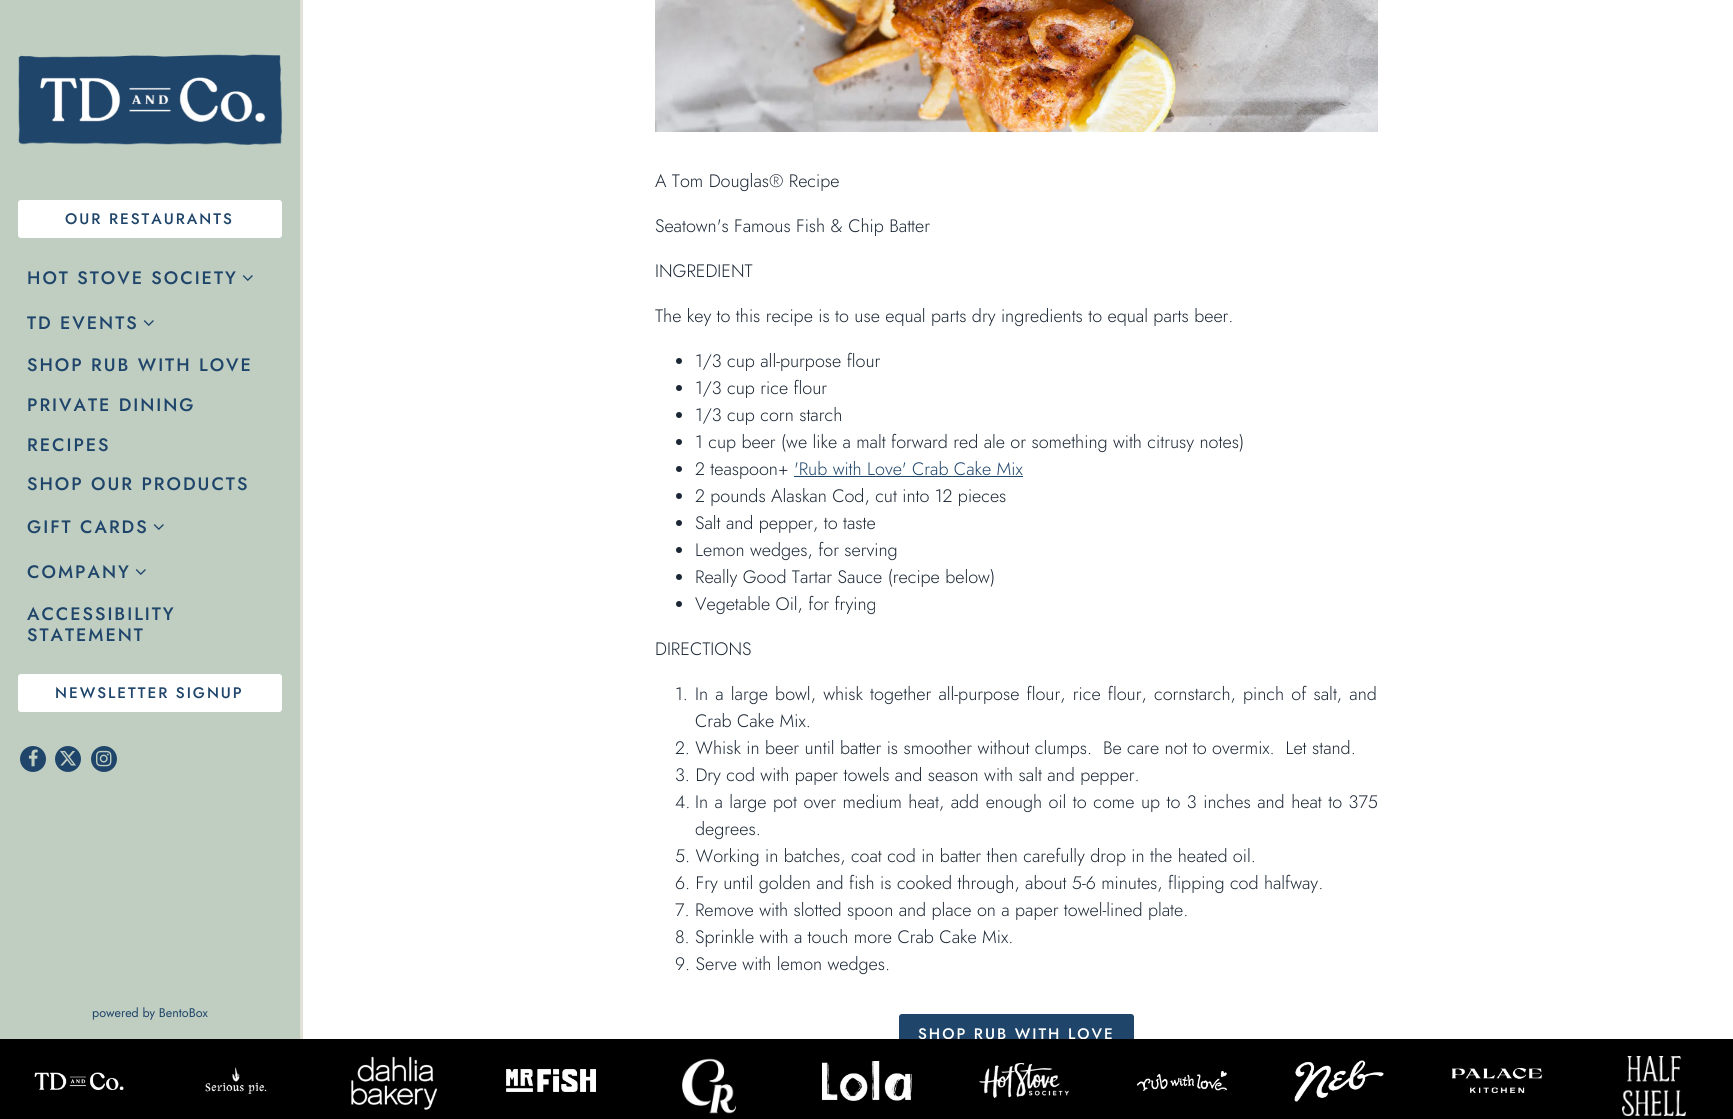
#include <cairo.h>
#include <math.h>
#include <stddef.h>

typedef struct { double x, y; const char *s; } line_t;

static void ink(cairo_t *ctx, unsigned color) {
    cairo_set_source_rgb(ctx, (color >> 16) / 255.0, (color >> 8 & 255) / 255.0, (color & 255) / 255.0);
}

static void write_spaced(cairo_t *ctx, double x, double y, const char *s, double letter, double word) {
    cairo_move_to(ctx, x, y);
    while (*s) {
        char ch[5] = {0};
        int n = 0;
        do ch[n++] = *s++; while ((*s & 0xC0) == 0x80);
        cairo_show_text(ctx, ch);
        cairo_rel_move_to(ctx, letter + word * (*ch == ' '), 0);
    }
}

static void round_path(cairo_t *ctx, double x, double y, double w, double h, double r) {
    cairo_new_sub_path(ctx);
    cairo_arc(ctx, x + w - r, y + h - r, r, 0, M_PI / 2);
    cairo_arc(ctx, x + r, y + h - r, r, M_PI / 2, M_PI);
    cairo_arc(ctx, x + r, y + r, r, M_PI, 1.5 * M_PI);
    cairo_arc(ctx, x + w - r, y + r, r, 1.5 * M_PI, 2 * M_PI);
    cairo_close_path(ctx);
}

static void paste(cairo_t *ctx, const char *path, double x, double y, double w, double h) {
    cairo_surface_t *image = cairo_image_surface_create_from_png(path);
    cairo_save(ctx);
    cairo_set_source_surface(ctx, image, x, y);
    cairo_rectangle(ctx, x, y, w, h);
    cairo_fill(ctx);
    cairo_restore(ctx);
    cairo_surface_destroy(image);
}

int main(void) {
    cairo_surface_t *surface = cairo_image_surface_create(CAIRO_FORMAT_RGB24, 1733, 1119);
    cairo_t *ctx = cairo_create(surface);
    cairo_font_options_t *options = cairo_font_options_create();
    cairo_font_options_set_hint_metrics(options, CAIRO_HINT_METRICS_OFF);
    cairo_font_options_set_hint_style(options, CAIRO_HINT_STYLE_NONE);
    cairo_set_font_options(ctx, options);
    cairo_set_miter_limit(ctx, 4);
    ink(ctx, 0xFFFFFF);
    cairo_paint(ctx);
    ink(ctx, 0xC0CEC1);
    cairo_rectangle(ctx, 0, 0, 300, 1039);
    cairo_fill(ctx);
    paste(ctx, "media/1.png", 18, 54, 264, 91);
    ink(ctx, 0xFFFFFF);
    round_path(ctx, 18.5, 200.5, 263, 37, 2.5);
    cairo_fill_preserve(ctx);
    cairo_set_line_width(ctx, 1);
    cairo_stroke(ctx);
    round_path(ctx, 18.5, 674.5, 263, 37, 2.5);
    cairo_fill_preserve(ctx);
    cairo_stroke(ctx);
    ink(ctx, 0x1F456A);
    cairo_arc(ctx, 33, 759, 13, 0, 2 * M_PI);
    cairo_fill(ctx);
    paste(ctx, "media/3.png", 28, 749, 10, 18);
    cairo_arc(ctx, 68, 759, 13, 0, 2 * M_PI);
    cairo_fill(ctx);
    paste(ctx, "media/4.png", 60, 750, 16, 16);
    cairo_arc(ctx, 104, 759, 13, 0, 2 * M_PI);
    cairo_fill(ctx);
    paste(ctx, "media/5.png", 96, 750, 16, 17);
    cairo_rectangle(ctx, -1.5, -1.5, 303, 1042);
    ink(ctx, 0xE1E1D7);
    cairo_set_line_width(ctx, 3);
    cairo_stroke(ctx);
    cairo_select_font_face(ctx, "Jost Medium", CAIRO_FONT_SLANT_NORMAL, CAIRO_FONT_WEIGHT_NORMAL);
    cairo_set_font_size(ctx, 15.25);
    ink(ctx, 0x1F456A);
    write_spaced(ctx, 65, 224, "OUR RESTAURANTS", 2, 0);
    cairo_set_font_size(ctx, 18);
    write_spaced(ctx, 27, 284, "HOT STOVE SOCIETY", 2, 0);
    paste(ctx, "media/2.png", 242, 275, 11, 6);
    write_spaced(ctx, 27, 329, "TD EVENTS", 2, 0);
    paste(ctx, "media/2.png", 143, 320, 11, 6);
    {
        static const line_t items[] = {
            {27, 371, "SHOP RUB WITH LOVE"},
            {27, 411, "PRIVATE DINING"},
            {27, 451, "RECIPES"},
            {27, 490, "SHOP OUR PRODUCTS"},
            {27, 533, "GIFT CARDS"},
        };
        for (size_t i = 0; i < sizeof items / sizeof *items; i++) {
            write_spaced(ctx, items[i].x, items[i].y, items[i].s, 2, 0);
        }
    }
    paste(ctx, "media/2.png", 153, 524, 11, 6);
    write_spaced(ctx, 27, 578, "COMPANY", 2, 0);
    paste(ctx, "media/2.png", 135, 569, 11, 6);
    write_spaced(ctx, 27, 620, "ACCESSIBILITY", 2, 0);
    write_spaced(ctx, 27, 641, "STATEMENT", 2, 0);
    cairo_set_font_size(ctx, 15.25);
    write_spaced(ctx, 55, 698, "NEWSLETTER SIGNUP", 2, 0);
    cairo_select_font_face(ctx, "Jost", CAIRO_FONT_SLANT_NORMAL, CAIRO_FONT_WEIGHT_NORMAL);
    cairo_set_font_size(ctx, 12.5);
    cairo_move_to(ctx, 92, 1017);
    cairo_show_text(ctx, "powered by BentoBox");
    paste(ctx, "media/6.png", 655, 0, 723, 132);
    cairo_select_font_face(ctx, "Jost Light", CAIRO_FONT_SLANT_NORMAL, CAIRO_FONT_WEIGHT_NORMAL);
    cairo_set_font_size(ctx, 18);
    ink(ctx, 0x1B2734);
    {
        static const line_t items[] = {
            {655, 187, "A Tom Douglas® Recipe"},
            {655, 232, "Seatown's Famous Fish & Chip Batter"},
            {655, 277, "INGREDIENT"},
            {655, 322, "The key to this recipe is to use equal parts dry ingredients to equal parts beer."},
        };
        for (size_t i = 0; i < sizeof items / sizeof *items; i++) {
            cairo_move_to(ctx, items[i].x, items[i].y);
            cairo_show_text(ctx, items[i].s);
        }
    }
    cairo_new_path(ctx);
    cairo_arc(ctx, 679, 361, 3, 0, 2 * M_PI);
    cairo_fill(ctx);
    cairo_move_to(ctx, 695, 367);
    cairo_show_text(ctx, "1/3 cup all-purpose flour");
    cairo_new_path(ctx);
    cairo_arc(ctx, 679, 388, 3, 0, 2 * M_PI);
    cairo_fill(ctx);
    cairo_move_to(ctx, 695, 394);
    cairo_show_text(ctx, "1/3 cup rice flour");
    cairo_new_path(ctx);
    cairo_arc(ctx, 679, 415, 3, 0, 2 * M_PI);
    cairo_fill(ctx);
    cairo_move_to(ctx, 695, 421);
    cairo_show_text(ctx, "1/3 cup corn starch");
    cairo_new_path(ctx);
    cairo_arc(ctx, 679, 442, 3, 0, 2 * M_PI);
    cairo_fill(ctx);
    cairo_move_to(ctx, 695, 448);
    cairo_show_text(ctx, "1 cup beer (we like a malt forward red ale or something with citrusy notes)");
    cairo_new_path(ctx);
    cairo_arc(ctx, 679, 469, 3, 0, 2 * M_PI);
    cairo_fill(ctx);
    cairo_move_to(ctx, 695, 475);
    cairo_show_text(ctx, "2 teaspoon+");
    ink(ctx, 0x1F456A);
    cairo_move_to(ctx, 794, 475);
    cairo_show_text(ctx, "'Rub with Love' Crab Cake Mix");
    cairo_rectangle(ctx, 794, 476, 229, 1);
    cairo_fill(ctx);
    ink(ctx, 0x1B2734);
    cairo_arc(ctx, 679, 496, 3, 0, 2 * M_PI);
    cairo_fill(ctx);
    cairo_move_to(ctx, 695, 502);
    cairo_show_text(ctx, "2 pounds Alaskan Cod, cut into 12 pieces");
    cairo_new_path(ctx);
    cairo_arc(ctx, 679, 523, 3, 0, 2 * M_PI);
    cairo_fill(ctx);
    cairo_move_to(ctx, 695, 529);
    cairo_show_text(ctx, "Salt and pepper, to taste");
    cairo_new_path(ctx);
    cairo_arc(ctx, 679, 550, 3, 0, 2 * M_PI);
    cairo_fill(ctx);
    cairo_move_to(ctx, 695, 556);
    cairo_show_text(ctx, "Lemon wedges, for serving");
    cairo_new_path(ctx);
    cairo_arc(ctx, 679, 577, 3, 0, 2 * M_PI);
    cairo_fill(ctx);
    cairo_move_to(ctx, 695, 583);
    cairo_show_text(ctx, "Really Good Tartar Sauce (recipe below)");
    cairo_new_path(ctx);
    cairo_arc(ctx, 679, 604, 3, 0, 2 * M_PI);
    cairo_fill(ctx);
    {
        static const line_t items[] = {
            {695, 610, "Vegetable Oil, for frying"},
            {655, 655, "DIRECTIONS"},
            {675, 700, "1."},
        };
        for (size_t i = 0; i < sizeof items / sizeof *items; i++) {
            cairo_move_to(ctx, items[i].x, items[i].y);
            cairo_show_text(ctx, items[i].s);
        }
    }
    write_spaced(ctx, 695, 700, "In a large bowl, whisk together all-purpose flour, rice flour, cornstarch, pinch of salt, and", 0, 1.8);
    {
        static const line_t items[] = {
            {695, 727, "Crab Cake Mix."},
            {675, 754, "2. Whisk in beer until batter is smoother without clumps.  Be care not to overmix.  Let stand."},
            {675, 781, "3. Dry cod with paper towels and season with salt and pepper."},
            {675, 808, "4."},
        };
        for (size_t i = 0; i < sizeof items / sizeof *items; i++) {
            cairo_move_to(ctx, items[i].x, items[i].y);
            cairo_show_text(ctx, items[i].s);
        }
    }
    write_spaced(ctx, 695, 808, "In a large pot over medium heat, add enough oil to come up to 3 inches and heat to 375", 0, 1.1);
    {
        static const line_t items[] = {
            {695, 835, "degrees."},
            {675, 862, "5. Working in batches, coat cod in batter then carefully drop in the heated oil."},
            {675, 889, "6. Fry until golden and fish is cooked through, about 5-6 minutes, flipping cod halfway."},
            {675, 916, "7. Remove with slotted spoon and place on a paper towel-lined plate."},
            {675, 943, "8. Sprinkle with a touch more Crab Cake Mix."},
            {675, 970, "9. Serve with lemon wedges."},
        };
        for (size_t i = 0; i < sizeof items / sizeof *items; i++) {
            cairo_move_to(ctx, items[i].x, items[i].y);
            cairo_show_text(ctx, items[i].s);
        }
    }
    ink(ctx, 0x1F456A);
    round_path(ctx, 899.5, 1014.5, 234, 38, 2.5);
    cairo_fill_preserve(ctx);
    cairo_set_line_width(ctx, 1);
    cairo_stroke(ctx);
    cairo_select_font_face(ctx, "Jost Medium", CAIRO_FONT_SLANT_NORMAL, CAIRO_FONT_WEIGHT_NORMAL);
    cairo_set_font_size(ctx, 15.25);
    ink(ctx, 0xFFFFFF);
    write_spaced(ctx, 918, 1039, "SHOP RUB WITH LOVE", 2, 0);
    ink(ctx, 0x000000);
    cairo_rectangle(ctx, 0, 1039, 1733, 80);
    cairo_fill(ctx);
    paste(ctx, "media/7.png", 34, 1072, 90, 18);
    paste(ctx, "media/8.png", 205, 1067, 62, 27);
    paste(ctx, "media/9.png", 351, 1056, 87, 54);
    paste(ctx, "media/10.png", 506, 1069, 90, 23);
    paste(ctx, "media/11.png", 682, 1058, 54, 56);
    paste(ctx, "media/12.png", 822, 1061, 90, 40);
    paste(ctx, "media/13.png", 979, 1063, 90, 35);
    paste(ctx, "media/14.png", 1137, 1071, 90, 20);
    paste(ctx, "media/15.png", 1294, 1060, 90, 42);
    paste(ctx, "media/16.png", 1452, 1068, 90, 25);
    paste(ctx, "media/17.png", 1622, 1056, 64, 60);
    cairo_surface_write_to_png(surface, "image.png");
    cairo_font_options_destroy(options);
    cairo_destroy(ctx);
    cairo_surface_destroy(surface);
    return 0;
}
